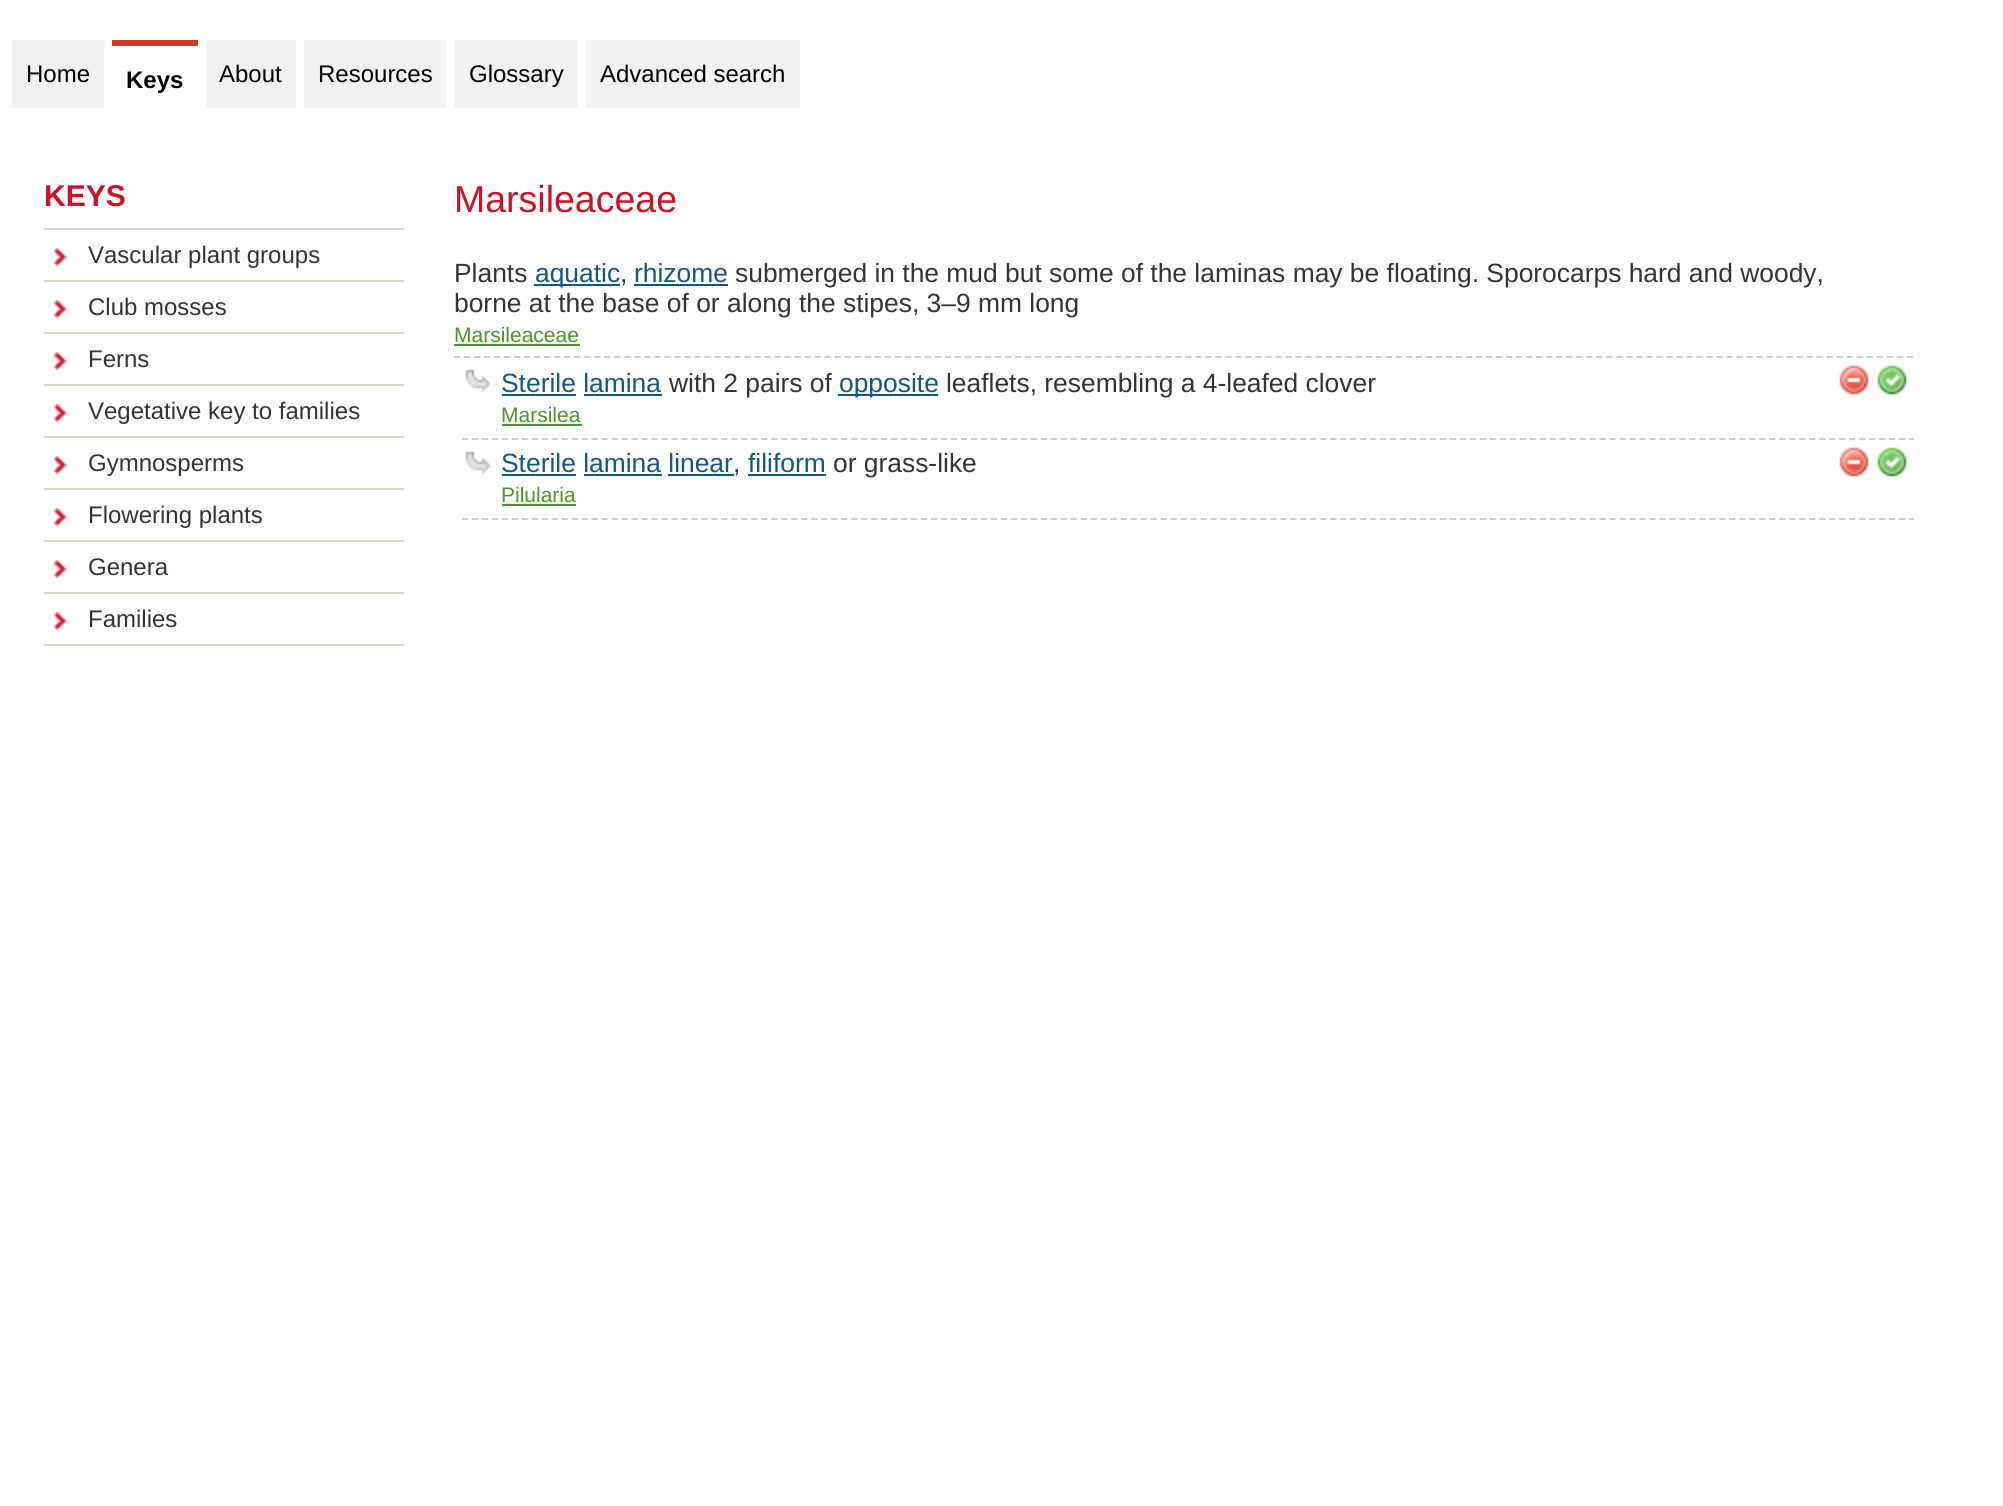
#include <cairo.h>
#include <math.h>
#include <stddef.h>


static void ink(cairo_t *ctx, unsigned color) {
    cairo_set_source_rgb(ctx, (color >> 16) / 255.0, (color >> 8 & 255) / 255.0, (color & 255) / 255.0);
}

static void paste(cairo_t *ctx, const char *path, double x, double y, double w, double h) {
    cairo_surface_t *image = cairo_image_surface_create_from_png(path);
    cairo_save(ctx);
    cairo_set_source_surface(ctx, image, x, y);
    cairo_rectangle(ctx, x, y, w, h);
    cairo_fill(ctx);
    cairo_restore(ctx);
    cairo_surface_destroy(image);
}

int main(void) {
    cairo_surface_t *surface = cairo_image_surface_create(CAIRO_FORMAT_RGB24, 2003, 1506);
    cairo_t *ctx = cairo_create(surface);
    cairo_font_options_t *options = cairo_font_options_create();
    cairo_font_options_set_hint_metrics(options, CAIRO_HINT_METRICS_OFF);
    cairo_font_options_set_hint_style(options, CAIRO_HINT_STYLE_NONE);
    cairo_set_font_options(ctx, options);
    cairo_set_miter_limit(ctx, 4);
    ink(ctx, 0xFFFFFF);
    cairo_paint(ctx);
    ink(ctx, 0xF1F1F1);
    cairo_rectangle(ctx, 12, 40, 92, 68);
    cairo_fill(ctx);
    cairo_select_font_face(ctx, "Liberation Sans", CAIRO_FONT_SLANT_NORMAL, CAIRO_FONT_WEIGHT_NORMAL);
    cairo_set_font_size(ctx, 24);
    ink(ctx, 0x000000);
    cairo_move_to(ctx, 26, 82);
    cairo_show_text(ctx, "Home");
    ink(ctx, 0xCE3D20);
    cairo_rectangle(ctx, 112, 40, 86, 6);
    cairo_fill(ctx);
    cairo_select_font_face(ctx, "Liberation Sans", CAIRO_FONT_SLANT_NORMAL, CAIRO_FONT_WEIGHT_BOLD);
    ink(ctx, 0x000000);
    cairo_move_to(ctx, 126, 88);
    cairo_show_text(ctx, "Keys");
    ink(ctx, 0xF1F1F1);
    cairo_rectangle(ctx, 206, 40, 90, 68);
    cairo_fill(ctx);
    cairo_select_font_face(ctx, "Liberation Sans", CAIRO_FONT_SLANT_NORMAL, CAIRO_FONT_WEIGHT_NORMAL);
    ink(ctx, 0x000000);
    cairo_move_to(ctx, 219, 82);
    cairo_show_text(ctx, "About");
    ink(ctx, 0xF1F1F1);
    cairo_rectangle(ctx, 304, 40, 142, 68);
    cairo_fill(ctx);
    ink(ctx, 0x000000);
    cairo_move_to(ctx, 318, 82);
    cairo_show_text(ctx, "Resources");
    ink(ctx, 0xF1F1F1);
    cairo_rectangle(ctx, 454, 40, 124, 68);
    cairo_fill(ctx);
    ink(ctx, 0x000000);
    cairo_move_to(ctx, 469, 82);
    cairo_show_text(ctx, "Glossary");
    ink(ctx, 0xF1F1F1);
    cairo_rectangle(ctx, 586, 40, 214, 68);
    cairo_fill(ctx);
    ink(ctx, 0x000000);
    cairo_move_to(ctx, 600, 82);
    cairo_show_text(ctx, "Advanced search");
    cairo_select_font_face(ctx, "Liberation Sans", CAIRO_FONT_SLANT_NORMAL, CAIRO_FONT_WEIGHT_BOLD);
    cairo_set_font_size(ctx, 30);
    ink(ctx, 0xCE1126);
    cairo_move_to(ctx, 44, 206);
    cairo_show_text(ctx, "KEYS");
    ink(ctx, 0xD6D6D6);
    cairo_rectangle(ctx, 44, 228, 360, 2);
    cairo_fill(ctx);
    ink(ctx, 0xDBD3C2);
    cairo_rectangle(ctx, 44, 280, 360, 2);
    cairo_fill(ctx);
    paste(ctx, "media/1.png", 54, 248, 14, 18);
    cairo_select_font_face(ctx, "Liberation Sans", CAIRO_FONT_SLANT_NORMAL, CAIRO_FONT_WEIGHT_NORMAL);
    cairo_set_font_size(ctx, 24);
    ink(ctx, 0x333333);
    cairo_move_to(ctx, 88, 263);
    cairo_show_text(ctx, "Vascular plant groups");
    ink(ctx, 0xDBD3C2);
    cairo_rectangle(ctx, 44, 332, 360, 2);
    cairo_fill(ctx);
    paste(ctx, "media/1.png", 54, 300, 14, 18);
    ink(ctx, 0x333333);
    cairo_move_to(ctx, 88, 315);
    cairo_show_text(ctx, "Club mosses");
    ink(ctx, 0xDBD3C2);
    cairo_rectangle(ctx, 44, 384, 360, 2);
    cairo_fill(ctx);
    paste(ctx, "media/1.png", 54, 352, 14, 18);
    ink(ctx, 0x333333);
    cairo_move_to(ctx, 88, 367);
    cairo_show_text(ctx, "Ferns");
    ink(ctx, 0xDBD3C2);
    cairo_rectangle(ctx, 44, 436, 360, 2);
    cairo_fill(ctx);
    paste(ctx, "media/1.png", 54, 404, 14, 18);
    ink(ctx, 0x333333);
    cairo_move_to(ctx, 88, 419);
    cairo_show_text(ctx, "Vegetative key to families");
    ink(ctx, 0xDBD3C2);
    cairo_rectangle(ctx, 44, 488, 360, 2);
    cairo_fill(ctx);
    paste(ctx, "media/1.png", 54, 456, 14, 18);
    ink(ctx, 0x333333);
    cairo_move_to(ctx, 88, 471);
    cairo_show_text(ctx, "Gymnosperms");
    ink(ctx, 0xDBD3C2);
    cairo_rectangle(ctx, 44, 540, 360, 2);
    cairo_fill(ctx);
    paste(ctx, "media/1.png", 54, 508, 14, 18);
    ink(ctx, 0x333333);
    cairo_move_to(ctx, 88, 523);
    cairo_show_text(ctx, "Flowering plants");
    ink(ctx, 0xDBD3C2);
    cairo_rectangle(ctx, 44, 592, 360, 2);
    cairo_fill(ctx);
    paste(ctx, "media/1.png", 54, 560, 14, 18);
    ink(ctx, 0x333333);
    cairo_move_to(ctx, 88, 575);
    cairo_show_text(ctx, "Genera");
    ink(ctx, 0xDBD3C2);
    cairo_rectangle(ctx, 44, 644, 360, 2);
    cairo_fill(ctx);
    paste(ctx, "media/1.png", 54, 612, 14, 18);
    ink(ctx, 0x333333);
    cairo_move_to(ctx, 88, 627);
    cairo_show_text(ctx, "Families");
    cairo_set_font_size(ctx, 37.5);
    ink(ctx, 0xCE1126);
    cairo_move_to(ctx, 454, 212);
    cairo_show_text(ctx, "Marsileaceae");
    cairo_new_path(ctx);
    cairo_move_to(ctx, 454, 357);
    cairo_line_to(ctx, 1914, 357);
    ink(ctx, 0xCCCCCC);
    cairo_set_dash(ctx, (double[]){6, 4.02}, 2, 0);
    cairo_stroke(ctx);
    cairo_set_font_size(ctx, 26.4);
    ink(ctx, 0x333333);
    cairo_move_to(ctx, 454, 282);
    cairo_show_text(ctx, "Plants");
    ink(ctx, 0x125687);
    cairo_rectangle(ctx, 534, 284, 86, 2);
    cairo_fill(ctx);
    cairo_move_to(ctx, 535, 282);
    cairo_show_text(ctx, "aquatic");
    ink(ctx, 0x333333);
    cairo_move_to(ctx, 620, 282);
    cairo_show_text(ctx, ",");
    ink(ctx, 0x125687);
    cairo_move_to(ctx, 634, 282);
    cairo_show_text(ctx, "rhizome");
    cairo_rectangle(ctx, 634, 284, 94, 2);
    cairo_fill(ctx);
    ink(ctx, 0x333333);
    cairo_move_to(ctx, 735, 282);
    cairo_show_text(ctx, "submerged in the mud but some of the laminas may be floating. Sporocarps hard and woody,");
    cairo_move_to(ctx, 454, 312);
    cairo_show_text(ctx, "borne at the base of or along the stipes, 3–9 mm long");
    cairo_set_font_size(ctx, 21);
    ink(ctx, 0x49942B);
    cairo_move_to(ctx, 454, 342);
    cairo_show_text(ctx, "Marsileaceae");
    cairo_rectangle(ctx, 454, 344, 126, 2);
    cairo_fill(ctx);
    paste(ctx, "media/2.png", 465, 369, 26, 24);
    cairo_new_path(ctx);
    cairo_move_to(ctx, 462, 439);
    cairo_line_to(ctx, 1914, 439);
    ink(ctx, 0xCCCCCC);
    cairo_set_dash(ctx, (double[]){6, 3.98}, 2, 0);
    cairo_stroke(ctx);
    cairo_set_font_size(ctx, 26.4);
    ink(ctx, 0x125687);
    cairo_move_to(ctx, 501, 392);
    cairo_show_text(ctx, "Sterile lamina");
    cairo_rectangle(ctx, 502, 394, 74, 2);
    cairo_fill(ctx);
    ink(ctx, 0x333333);
    cairo_move_to(ctx, 669, 392);
    cairo_show_text(ctx, "with 2 pairs of");
    ink(ctx, 0x125687);
    cairo_rectangle(ctx, 838, 394, 100, 2);
    cairo_fill(ctx);
    cairo_move_to(ctx, 839, 392);
    cairo_show_text(ctx, "opposite");
    ink(ctx, 0x333333);
    cairo_move_to(ctx, 946, 392);
    cairo_show_text(ctx, "leaflets, resembling a 4-leafed clover");
    ink(ctx, 0x125687);
    cairo_rectangle(ctx, 584, 394, 78, 2);
    cairo_fill(ctx);
    cairo_set_font_size(ctx, 21);
    ink(ctx, 0x49942B);
    cairo_move_to(ctx, 501, 422);
    cairo_show_text(ctx, "Marsilea");
    cairo_rectangle(ctx, 502, 424, 80, 2);
    cairo_fill(ctx);
    paste(ctx, "media/3.png", 1839, 365, 30, 30);
    paste(ctx, "media/4.png", 1877, 365, 30, 30);
    paste(ctx, "media/2.png", 465, 451, 26, 24);
    cairo_new_path(ctx);
    cairo_move_to(ctx, 462, 519);
    cairo_line_to(ctx, 1914, 519);
    ink(ctx, 0xCCCCCC);
    cairo_stroke(ctx);
    cairo_set_font_size(ctx, 26.4);
    ink(ctx, 0x125687);
    cairo_move_to(ctx, 501, 472);
    cairo_show_text(ctx, "Sterile lamina linear");
    cairo_rectangle(ctx, 502, 474, 74, 2);
    cairo_fill(ctx);
    ink(ctx, 0x333333);
    cairo_move_to(ctx, 733, 472);
    cairo_show_text(ctx, ",");
    ink(ctx, 0x125687);
    cairo_move_to(ctx, 748, 472);
    cairo_show_text(ctx, "filiform");
    cairo_rectangle(ctx, 748, 474, 78, 2);
    cairo_fill(ctx);
    ink(ctx, 0x333333);
    cairo_move_to(ctx, 833, 472);
    cairo_show_text(ctx, "or grass-like");
    ink(ctx, 0x125687);
    cairo_rectangle(ctx, 584, 474, 78, 2);
    cairo_fill(ctx);
    cairo_rectangle(ctx, 668, 474, 66, 2);
    cairo_fill(ctx);
    cairo_set_font_size(ctx, 21);
    ink(ctx, 0x49942B);
    cairo_move_to(ctx, 501, 502);
    cairo_show_text(ctx, "Pilularia");
    cairo_rectangle(ctx, 502, 504, 74, 2);
    cairo_fill(ctx);
    paste(ctx, "media/3.png", 1839, 447, 30, 30);
    paste(ctx, "media/4.png", 1877, 447, 30, 30);
    cairo_surface_write_to_png(surface, "image.png");
    cairo_font_options_destroy(options);
    cairo_destroy(ctx);
    cairo_surface_destroy(surface);
    return 0;
}
